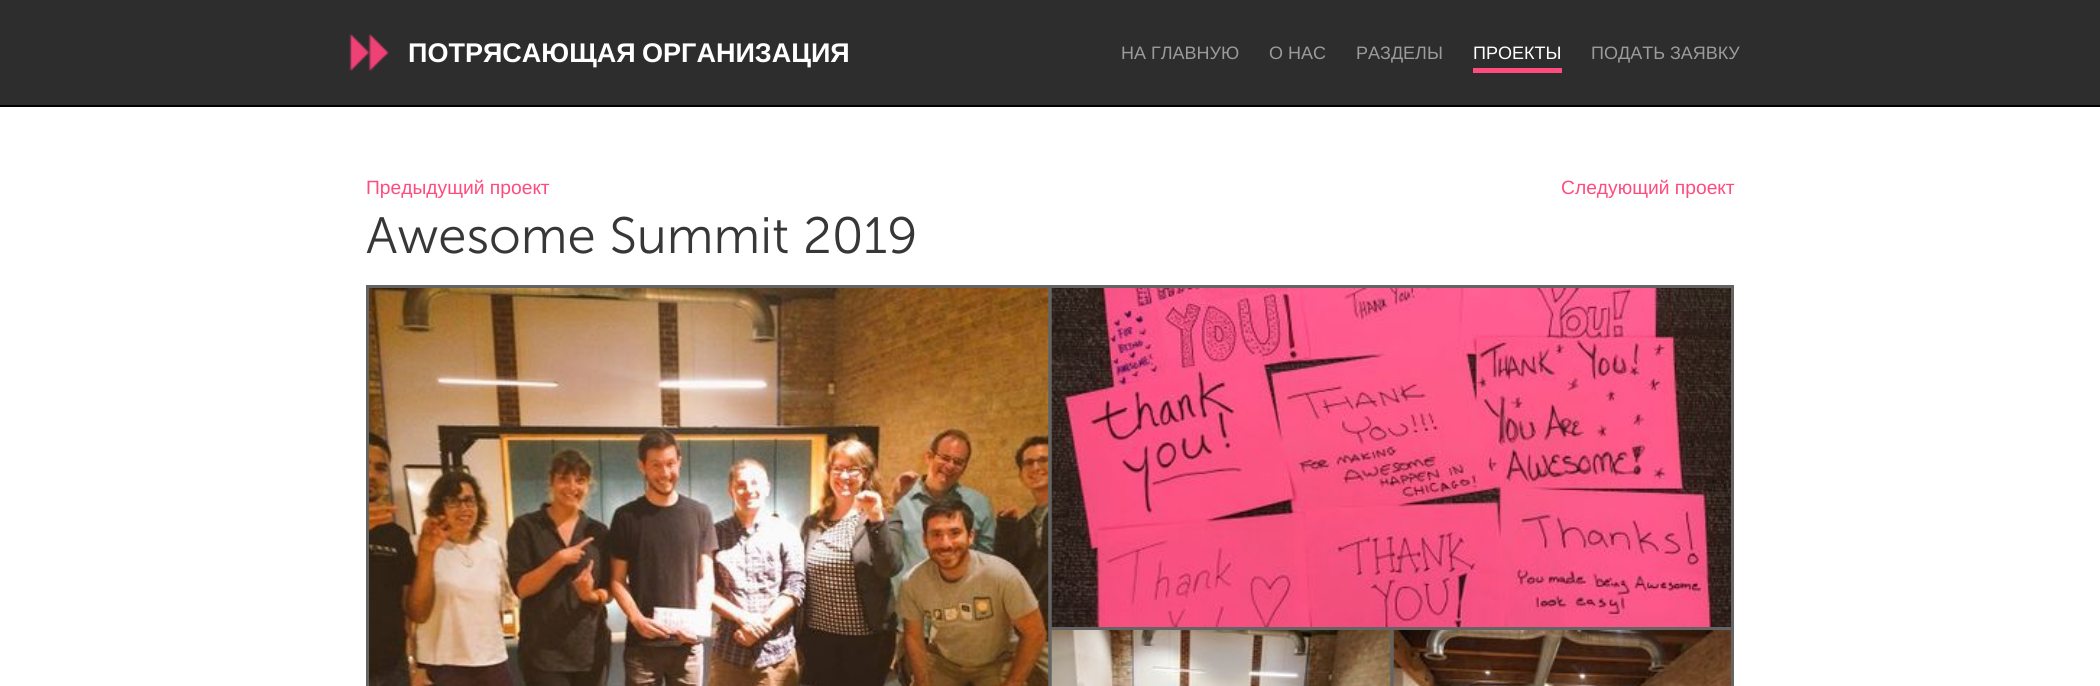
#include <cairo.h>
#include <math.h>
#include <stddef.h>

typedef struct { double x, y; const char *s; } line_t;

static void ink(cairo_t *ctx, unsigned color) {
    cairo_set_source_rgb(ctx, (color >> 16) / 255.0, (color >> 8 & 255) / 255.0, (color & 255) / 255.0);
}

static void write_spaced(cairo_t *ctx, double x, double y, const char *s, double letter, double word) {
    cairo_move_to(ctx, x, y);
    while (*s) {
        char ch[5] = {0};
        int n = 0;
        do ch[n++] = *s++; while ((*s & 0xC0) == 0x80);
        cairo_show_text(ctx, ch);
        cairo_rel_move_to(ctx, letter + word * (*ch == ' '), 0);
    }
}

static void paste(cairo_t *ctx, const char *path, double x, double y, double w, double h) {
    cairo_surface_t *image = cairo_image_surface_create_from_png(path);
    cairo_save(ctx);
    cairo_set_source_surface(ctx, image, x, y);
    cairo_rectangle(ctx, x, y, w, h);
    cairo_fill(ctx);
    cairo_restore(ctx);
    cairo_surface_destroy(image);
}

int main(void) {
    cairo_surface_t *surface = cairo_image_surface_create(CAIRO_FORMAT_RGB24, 2100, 686);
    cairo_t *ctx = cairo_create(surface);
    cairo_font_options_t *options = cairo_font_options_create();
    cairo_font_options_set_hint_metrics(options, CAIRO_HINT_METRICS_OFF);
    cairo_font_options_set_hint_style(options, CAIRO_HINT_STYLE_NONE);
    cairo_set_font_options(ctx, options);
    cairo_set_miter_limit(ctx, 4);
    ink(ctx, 0xFFFFFF);
    cairo_paint(ctx);
    ink(ctx, 0x2D2D2D);
    cairo_rectangle(ctx, 0, 0, 2100, 105);
    cairo_fill(ctx);
    ink(ctx, 0x000000);
    cairo_rectangle(ctx, 0, 105, 2100, 2);
    cairo_fill(ctx);
    paste(ctx, "media/1.png", 349, 34, 40, 37);
    cairo_select_font_face(ctx, "Liberation Sans", CAIRO_FONT_SLANT_NORMAL, CAIRO_FONT_WEIGHT_BOLD);
    cairo_set_font_size(ctx, 27);
    ink(ctx, 0xFFFFFF);
    write_spaced(ctx, 408, 62, "ПОТРЯСАЮЩАЯ ОРГАНИЗАЦИЯ", 0, -1);
    cairo_select_font_face(ctx, "Liberation Sans", CAIRO_FONT_SLANT_NORMAL, CAIRO_FONT_WEIGHT_NORMAL);
    cairo_set_font_size(ctx, 18);
    ink(ctx, 0x9B9B9B);
    {
        static const line_t items[] = {
            {1121, 59, "НА ГЛАВНУЮ"},
            {1269, 59, "О НАС"},
            {1356, 59, "РАЗДЕЛЫ"},
        };
        for (size_t i = 0; i < sizeof items / sizeof *items; i++) {
            cairo_move_to(ctx, items[i].x, items[i].y);
            cairo_show_text(ctx, items[i].s);
        }
    }
    ink(ctx, 0xFF4B7E);
    cairo_rectangle(ctx, 1473, 68, 89, 5);
    cairo_fill(ctx);
    ink(ctx, 0xFFFFFF);
    cairo_move_to(ctx, 1473, 59);
    cairo_show_text(ctx, "ПРОЕКТЫ");
    ink(ctx, 0x9B9B9B);
    cairo_move_to(ctx, 1591, 59);
    cairo_show_text(ctx, "ПОДАТЬ ЗАЯВКУ");
    cairo_set_font_size(ctx, 19.25);
    ink(ctx, 0xFF4B7E);
    cairo_move_to(ctx, 366, 194);
    cairo_show_text(ctx, "Предыдущий проект");
    cairo_move_to(ctx, 1561, 194);
    cairo_show_text(ctx, "Следующий проект");
    cairo_select_font_face(ctx, "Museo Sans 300 Light", CAIRO_FONT_SLANT_NORMAL, CAIRO_FONT_WEIGHT_NORMAL);
    cairo_set_font_size(ctx, 51);
    ink(ctx, 0x373737);
    cairo_move_to(ctx, 366, 253);
    cairo_show_text(ctx, "Awesome Summit 2019");
    ink(ctx, 0x646464);
    cairo_rectangle(ctx, 366, 285, 1368, 401);
    cairo_fill(ctx);
    paste(ctx, "media/2.png", 369, 288, 680, 398);
    paste(ctx, "media/3.png", 1051, 288, 680, 339);
    paste(ctx, "media/4.png", 1051, 630, 340, 56);
    paste(ctx, "media/5.png", 1393, 630, 338, 56);
    cairo_surface_write_to_png(surface, "image.png");
    cairo_font_options_destroy(options);
    cairo_destroy(ctx);
    cairo_surface_destroy(surface);
    return 0;
}
